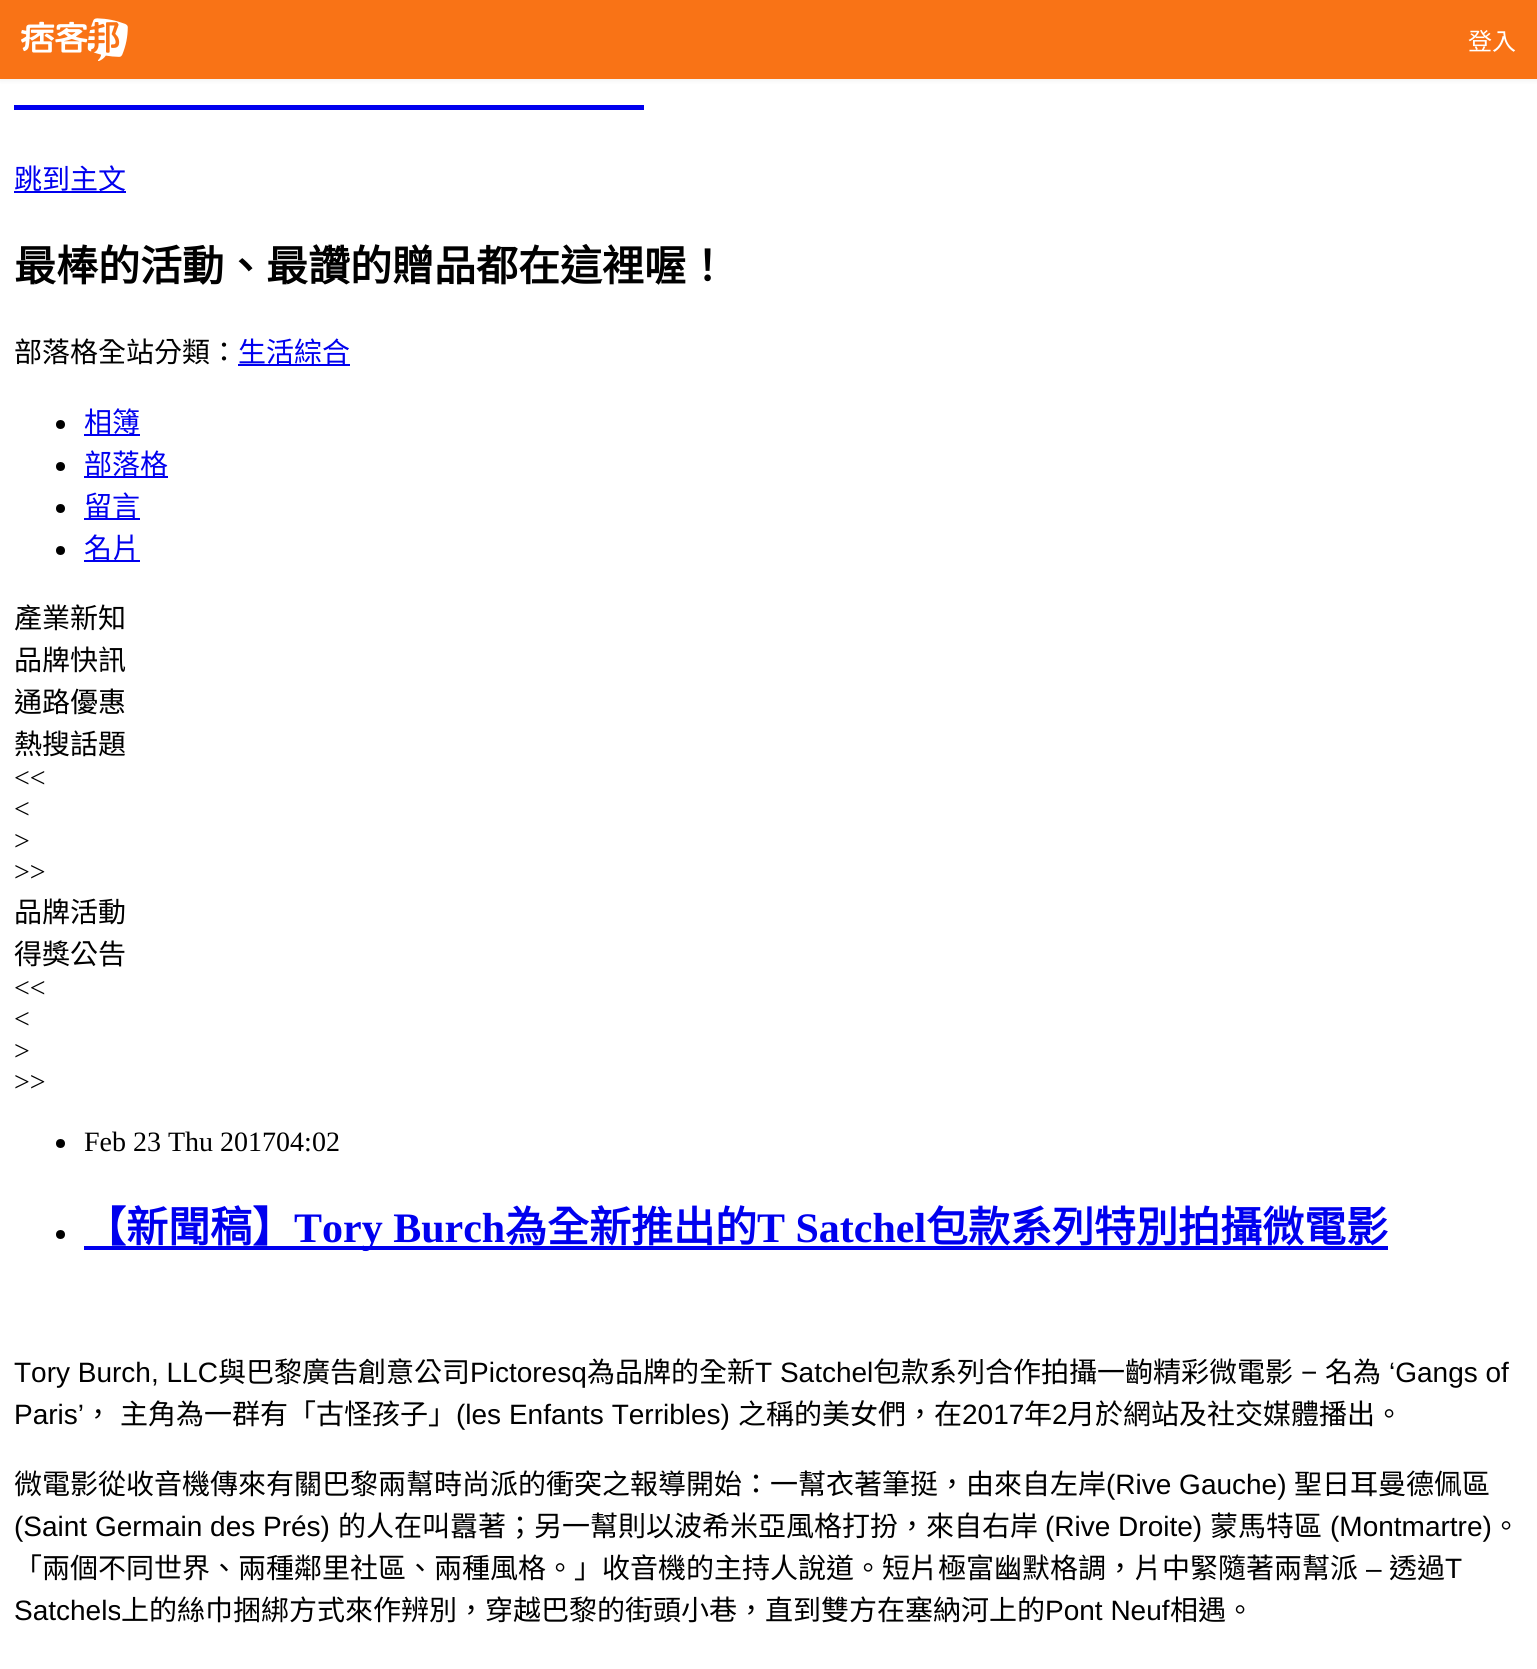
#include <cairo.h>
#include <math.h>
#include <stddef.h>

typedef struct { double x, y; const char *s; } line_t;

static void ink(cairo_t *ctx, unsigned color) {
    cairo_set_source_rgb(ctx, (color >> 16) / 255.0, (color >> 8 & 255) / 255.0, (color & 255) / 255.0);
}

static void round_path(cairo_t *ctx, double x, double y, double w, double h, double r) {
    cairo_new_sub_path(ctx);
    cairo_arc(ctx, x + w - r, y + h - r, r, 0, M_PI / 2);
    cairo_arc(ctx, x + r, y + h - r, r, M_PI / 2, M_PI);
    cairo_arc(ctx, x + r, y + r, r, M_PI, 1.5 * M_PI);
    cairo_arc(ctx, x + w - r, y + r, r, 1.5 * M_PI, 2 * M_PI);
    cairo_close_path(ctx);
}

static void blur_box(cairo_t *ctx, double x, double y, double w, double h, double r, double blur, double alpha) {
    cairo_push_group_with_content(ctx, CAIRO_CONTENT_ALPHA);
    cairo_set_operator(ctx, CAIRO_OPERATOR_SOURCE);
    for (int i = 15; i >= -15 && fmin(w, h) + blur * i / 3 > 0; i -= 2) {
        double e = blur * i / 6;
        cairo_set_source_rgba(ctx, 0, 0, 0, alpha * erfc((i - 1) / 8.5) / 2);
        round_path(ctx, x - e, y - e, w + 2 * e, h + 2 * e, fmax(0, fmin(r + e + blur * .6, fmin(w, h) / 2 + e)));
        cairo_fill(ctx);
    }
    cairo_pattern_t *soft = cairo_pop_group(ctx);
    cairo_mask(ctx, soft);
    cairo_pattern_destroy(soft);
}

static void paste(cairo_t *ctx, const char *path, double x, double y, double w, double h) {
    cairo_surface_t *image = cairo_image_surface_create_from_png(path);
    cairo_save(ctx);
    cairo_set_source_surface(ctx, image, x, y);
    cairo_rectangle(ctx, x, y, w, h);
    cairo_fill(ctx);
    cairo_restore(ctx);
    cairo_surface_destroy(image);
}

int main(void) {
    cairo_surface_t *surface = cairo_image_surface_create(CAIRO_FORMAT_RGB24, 1537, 1669);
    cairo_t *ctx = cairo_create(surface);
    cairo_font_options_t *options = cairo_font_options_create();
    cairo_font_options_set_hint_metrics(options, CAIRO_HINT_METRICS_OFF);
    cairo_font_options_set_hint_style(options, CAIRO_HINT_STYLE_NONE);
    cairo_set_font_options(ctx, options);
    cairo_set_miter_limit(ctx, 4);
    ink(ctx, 0xFFFFFF);
    cairo_paint(ctx);
    ink(ctx, 0x000000);
    blur_box(ctx, 0, 2, 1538, 79, 0, 2, 0.05);
    ink(ctx, 0xF97316);
    cairo_rectangle(ctx, 0, 0, 1537, 79);
    cairo_fill(ctx);
    paste(ctx, "media/1.png", 21, 18, 107, 43);
    cairo_select_font_face(ctx, "Noto Sans CJK TC", CAIRO_FONT_SLANT_NORMAL, CAIRO_FONT_WEIGHT_NORMAL);
    cairo_set_font_size(ctx, 24);
    ink(ctx, 0xFFFFFF);
    cairo_move_to(ctx, 1468, 50);
    cairo_show_text(ctx, "登入");
    ink(ctx, 0x0000EE);
    cairo_rectangle(ctx, 14, 105, 630, 5);
    cairo_fill(ctx);
    cairo_rectangle(ctx, 14, 191, 112, 2);
    cairo_fill(ctx);
    cairo_set_font_size(ctx, 28);
    cairo_move_to(ctx, 14, 189);
    cairo_show_text(ctx, "跳到主文");
    cairo_select_font_face(ctx, "Noto Sans CJK TC", CAIRO_FONT_SLANT_NORMAL, CAIRO_FONT_WEIGHT_BOLD);
    cairo_set_font_size(ctx, 42);
    ink(ctx, 0x000000);
    cairo_move_to(ctx, 14, 281);
    cairo_show_text(ctx, "最棒的活動、最讚的贈品都在這裡喔！");
    cairo_select_font_face(ctx, "Noto Sans CJK TC", CAIRO_FONT_SLANT_NORMAL, CAIRO_FONT_WEIGHT_NORMAL);
    cairo_set_font_size(ctx, 28);
    cairo_move_to(ctx, 14, 362);
    cairo_show_text(ctx, "部落格全站分類：");
    ink(ctx, 0x0000EE);
    cairo_rectangle(ctx, 238, 364, 112, 2);
    cairo_fill(ctx);
    cairo_move_to(ctx, 238, 362);
    cairo_show_text(ctx, "生活綜合");
    ink(ctx, 0x000000);
    cairo_new_path(ctx);
    cairo_arc(ctx, 60.5, 424.5, 4.5, 0, 2 * M_PI);
    cairo_fill(ctx);
    ink(ctx, 0x0000EE);
    cairo_rectangle(ctx, 84, 434, 56, 2);
    cairo_fill(ctx);
    cairo_move_to(ctx, 84, 432);
    cairo_show_text(ctx, "相簿");
    ink(ctx, 0x000000);
    cairo_new_path(ctx);
    cairo_arc(ctx, 60.5, 466.5, 4.5, 0, 2 * M_PI);
    cairo_fill(ctx);
    ink(ctx, 0x0000EE);
    cairo_rectangle(ctx, 84, 476, 84, 2);
    cairo_fill(ctx);
    cairo_move_to(ctx, 84, 474);
    cairo_show_text(ctx, "部落格");
    ink(ctx, 0x000000);
    cairo_new_path(ctx);
    cairo_arc(ctx, 60.5, 508.5, 4.5, 0, 2 * M_PI);
    cairo_fill(ctx);
    ink(ctx, 0x0000EE);
    cairo_rectangle(ctx, 84, 518, 56, 2);
    cairo_fill(ctx);
    cairo_move_to(ctx, 84, 516);
    cairo_show_text(ctx, "留言");
    ink(ctx, 0x000000);
    cairo_new_path(ctx);
    cairo_arc(ctx, 60.5, 550.5, 4.5, 0, 2 * M_PI);
    cairo_fill(ctx);
    ink(ctx, 0x0000EE);
    cairo_rectangle(ctx, 84, 560, 56, 2);
    cairo_fill(ctx);
    cairo_move_to(ctx, 84, 558);
    cairo_show_text(ctx, "名片");
    ink(ctx, 0x000000);
    {
        static const line_t items[] = {
            {14, 628, "產業新知"},
            {14, 670, "品牌快訊"},
            {14, 712, "通路優惠"},
            {14, 754, "熱搜話題"},
        };
        for (size_t i = 0; i < sizeof items / sizeof *items; i++) {
            cairo_move_to(ctx, items[i].x, items[i].y);
            cairo_show_text(ctx, items[i].s);
        }
    }
    cairo_select_font_face(ctx, "Liberation Serif", CAIRO_FONT_SLANT_NORMAL, CAIRO_FONT_WEIGHT_NORMAL);
    {
        static const line_t items[] = {
            {14, 787, "<<"},
            {14, 818, "<"},
            {14, 850, ">"},
            {14, 881, ">>"},
        };
        for (size_t i = 0; i < sizeof items / sizeof *items; i++) {
            cairo_move_to(ctx, items[i].x, items[i].y);
            cairo_show_text(ctx, items[i].s);
        }
    }
    cairo_select_font_face(ctx, "Noto Sans CJK TC", CAIRO_FONT_SLANT_NORMAL, CAIRO_FONT_WEIGHT_NORMAL);
    cairo_move_to(ctx, 14, 922);
    cairo_show_text(ctx, "品牌活動");
    cairo_move_to(ctx, 14, 964);
    cairo_show_text(ctx, "得獎公告");
    cairo_select_font_face(ctx, "Liberation Serif", CAIRO_FONT_SLANT_NORMAL, CAIRO_FONT_WEIGHT_NORMAL);
    {
        static const line_t items[] = {
            {14, 997, "<<"},
            {14, 1028, "<"},
            {14, 1060, ">"},
            {14, 1091, ">>"},
        };
        for (size_t i = 0; i < sizeof items / sizeof *items; i++) {
            cairo_move_to(ctx, items[i].x, items[i].y);
            cairo_show_text(ctx, items[i].s);
        }
    }
    cairo_new_path(ctx);
    cairo_arc(ctx, 60.5, 1143.5, 4.5, 0, 2 * M_PI);
    cairo_fill(ctx);
    cairo_move_to(ctx, 84, 1151);
    cairo_show_text(ctx, "Feb 23 Thu 201704:02");
    cairo_new_path(ctx);
    cairo_arc(ctx, 60.5, 1234.5, 4.5, 0, 2 * M_PI);
    cairo_fill(ctx);
    cairo_select_font_face(ctx, "Noto Sans CJK TC", CAIRO_FONT_SLANT_NORMAL, CAIRO_FONT_WEIGHT_BOLD);
    cairo_set_font_size(ctx, 42);
    ink(ctx, 0x0000EE);
    cairo_move_to(ctx, 84, 1242);
    cairo_show_text(ctx, "【新聞稿】");
    cairo_rectangle(ctx, 84, 1246, 1304, 4);
    cairo_fill(ctx);
    cairo_select_font_face(ctx, "Liberation Serif", CAIRO_FONT_SLANT_NORMAL, CAIRO_FONT_WEIGHT_BOLD);
    cairo_move_to(ctx, 294, 1242);
    cairo_show_text(ctx, "Tory Burch");
    cairo_select_font_face(ctx, "Noto Sans CJK TC", CAIRO_FONT_SLANT_NORMAL, CAIRO_FONT_WEIGHT_BOLD);
    cairo_move_to(ctx, 505, 1242);
    cairo_show_text(ctx, "為全新推出的");
    cairo_select_font_face(ctx, "Liberation Serif", CAIRO_FONT_SLANT_NORMAL, CAIRO_FONT_WEIGHT_BOLD);
    cairo_move_to(ctx, 757, 1242);
    cairo_show_text(ctx, "T Satchel");
    cairo_select_font_face(ctx, "Noto Sans CJK TC", CAIRO_FONT_SLANT_NORMAL, CAIRO_FONT_WEIGHT_BOLD);
    cairo_move_to(ctx, 926, 1242);
    cairo_show_text(ctx, "包款系列特別拍攝微電影");
    cairo_select_font_face(ctx, "Liberation Sans", CAIRO_FONT_SLANT_NORMAL, CAIRO_FONT_WEIGHT_NORMAL);
    cairo_set_font_size(ctx, 28);
    ink(ctx, 0x000000);
    cairo_move_to(ctx, 14, 1382);
    cairo_show_text(ctx, "Tory Burch, LLC");
    cairo_select_font_face(ctx, "Noto Sans CJK TC", CAIRO_FONT_SLANT_NORMAL, CAIRO_FONT_WEIGHT_NORMAL);
    cairo_move_to(ctx, 218, 1382);
    cairo_show_text(ctx, "與巴黎廣告創意公司");
    cairo_select_font_face(ctx, "Liberation Sans", CAIRO_FONT_SLANT_NORMAL, CAIRO_FONT_WEIGHT_NORMAL);
    cairo_move_to(ctx, 470, 1382);
    cairo_show_text(ctx, "Pictoresq");
    cairo_select_font_face(ctx, "Noto Sans CJK TC", CAIRO_FONT_SLANT_NORMAL, CAIRO_FONT_WEIGHT_NORMAL);
    cairo_move_to(ctx, 587, 1382);
    cairo_show_text(ctx, "為品牌的全新");
    cairo_select_font_face(ctx, "Liberation Sans", CAIRO_FONT_SLANT_NORMAL, CAIRO_FONT_WEIGHT_NORMAL);
    cairo_move_to(ctx, 755, 1382);
    cairo_show_text(ctx, "T Satchel");
    cairo_select_font_face(ctx, "Noto Sans CJK TC", CAIRO_FONT_SLANT_NORMAL, CAIRO_FONT_WEIGHT_NORMAL);
    cairo_move_to(ctx, 873, 1382);
    cairo_show_text(ctx, "包款系列合作拍攝一齣精彩微電影");
    cairo_select_font_face(ctx, "Liberation Sans", CAIRO_FONT_SLANT_NORMAL, CAIRO_FONT_WEIGHT_NORMAL);
    cairo_move_to(ctx, 1301, 1382);
    cairo_show_text(ctx, "−");
    cairo_select_font_face(ctx, "Noto Sans CJK TC", CAIRO_FONT_SLANT_NORMAL, CAIRO_FONT_WEIGHT_NORMAL);
    cairo_move_to(ctx, 1325, 1382);
    cairo_show_text(ctx, "名為");
    cairo_select_font_face(ctx, "Liberation Sans", CAIRO_FONT_SLANT_NORMAL, CAIRO_FONT_WEIGHT_NORMAL);
    cairo_move_to(ctx, 1389, 1382);
    cairo_show_text(ctx, "‘Gangs of");
    cairo_move_to(ctx, 14, 1424);
    cairo_show_text(ctx, "Paris’");
    cairo_select_font_face(ctx, "Noto Sans CJK TC", CAIRO_FONT_SLANT_NORMAL, CAIRO_FONT_WEIGHT_NORMAL);
    cairo_move_to(ctx, 84, 1424);
    cairo_show_text(ctx, "，");
    cairo_move_to(ctx, 120, 1424);
    cairo_show_text(ctx, "主角為一群有「古怪孩子」");
    cairo_select_font_face(ctx, "Liberation Sans", CAIRO_FONT_SLANT_NORMAL, CAIRO_FONT_WEIGHT_NORMAL);
    cairo_move_to(ctx, 456, 1424);
    cairo_show_text(ctx, "(les Enfants Terribles)");
    cairo_select_font_face(ctx, "Noto Sans CJK TC", CAIRO_FONT_SLANT_NORMAL, CAIRO_FONT_WEIGHT_NORMAL);
    cairo_move_to(ctx, 738, 1424);
    cairo_show_text(ctx, "之稱的美女們，在");
    cairo_select_font_face(ctx, "Liberation Sans", CAIRO_FONT_SLANT_NORMAL, CAIRO_FONT_WEIGHT_NORMAL);
    cairo_move_to(ctx, 962, 1424);
    cairo_show_text(ctx, "2017");
    cairo_select_font_face(ctx, "Noto Sans CJK TC", CAIRO_FONT_SLANT_NORMAL, CAIRO_FONT_WEIGHT_NORMAL);
    cairo_move_to(ctx, 1024, 1424);
    cairo_show_text(ctx, "年");
    cairo_select_font_face(ctx, "Liberation Sans", CAIRO_FONT_SLANT_NORMAL, CAIRO_FONT_WEIGHT_NORMAL);
    cairo_move_to(ctx, 1052, 1424);
    cairo_show_text(ctx, "2");
    cairo_select_font_face(ctx, "Noto Sans CJK TC", CAIRO_FONT_SLANT_NORMAL, CAIRO_FONT_WEIGHT_NORMAL);
    cairo_move_to(ctx, 1067, 1424);
    cairo_show_text(ctx, "月於網站及社交媒體播出。");
    cairo_move_to(ctx, 14, 1494);
    cairo_show_text(ctx, "微電影從收音機傳來有關巴黎兩幫時尚派的衝突之報導開始：一幫衣著筆挺，由來自左岸");
    cairo_select_font_face(ctx, "Liberation Sans", CAIRO_FONT_SLANT_NORMAL, CAIRO_FONT_WEIGHT_NORMAL);
    cairo_move_to(ctx, 1106, 1494);
    cairo_show_text(ctx, "(Rive Gauche)");
    cairo_select_font_face(ctx, "Noto Sans CJK TC", CAIRO_FONT_SLANT_NORMAL, CAIRO_FONT_WEIGHT_NORMAL);
    cairo_move_to(ctx, 1294, 1494);
    cairo_show_text(ctx, "聖日耳曼德佩區");
    cairo_select_font_face(ctx, "Liberation Sans", CAIRO_FONT_SLANT_NORMAL, CAIRO_FONT_WEIGHT_NORMAL);
    cairo_move_to(ctx, 14, 1536);
    cairo_show_text(ctx, "(Saint Germain des Prés)");
    cairo_select_font_face(ctx, "Noto Sans CJK TC", CAIRO_FONT_SLANT_NORMAL, CAIRO_FONT_WEIGHT_NORMAL);
    cairo_move_to(ctx, 338, 1536);
    cairo_show_text(ctx, "的人在叫囂著；另一幫則以波希米亞風格打扮，來自右岸");
    cairo_select_font_face(ctx, "Liberation Sans", CAIRO_FONT_SLANT_NORMAL, CAIRO_FONT_WEIGHT_NORMAL);
    cairo_move_to(ctx, 1045, 1536);
    cairo_show_text(ctx, "(Rive Droite)");
    cairo_select_font_face(ctx, "Noto Sans CJK TC", CAIRO_FONT_SLANT_NORMAL, CAIRO_FONT_WEIGHT_NORMAL);
    cairo_move_to(ctx, 1210, 1536);
    cairo_show_text(ctx, "蒙馬特區");
    cairo_select_font_face(ctx, "Liberation Sans", CAIRO_FONT_SLANT_NORMAL, CAIRO_FONT_WEIGHT_NORMAL);
    cairo_move_to(ctx, 1330, 1536);
    cairo_show_text(ctx, "(Montmartre)");
    cairo_select_font_face(ctx, "Noto Sans CJK TC", CAIRO_FONT_SLANT_NORMAL, CAIRO_FONT_WEIGHT_NORMAL);
    cairo_move_to(ctx, 1492, 1536);
    cairo_show_text(ctx, "。");
    cairo_move_to(ctx, 14, 1578);
    cairo_show_text(ctx, "「兩個不同世界、兩種鄰里社區、兩種風格。」收音機的主持人說道。短片極富幽默格調，片中緊隨著兩幫派");
    cairo_select_font_face(ctx, "Liberation Sans", CAIRO_FONT_SLANT_NORMAL, CAIRO_FONT_WEIGHT_NORMAL);
    cairo_move_to(ctx, 1366, 1578);
    cairo_show_text(ctx, "–");
    cairo_select_font_face(ctx, "Noto Sans CJK TC", CAIRO_FONT_SLANT_NORMAL, CAIRO_FONT_WEIGHT_NORMAL);
    cairo_move_to(ctx, 1389, 1578);
    cairo_show_text(ctx, "透過");
    cairo_select_font_face(ctx, "Liberation Sans", CAIRO_FONT_SLANT_NORMAL, CAIRO_FONT_WEIGHT_NORMAL);
    cairo_move_to(ctx, 1445, 1578);
    cairo_show_text(ctx, "T");
    cairo_move_to(ctx, 14, 1620);
    cairo_show_text(ctx, "Satchels");
    cairo_select_font_face(ctx, "Noto Sans CJK TC", CAIRO_FONT_SLANT_NORMAL, CAIRO_FONT_WEIGHT_NORMAL);
    cairo_move_to(ctx, 121, 1620);
    cairo_show_text(ctx, "上的絲巾捆綁方式來作辨別，穿越巴黎的街頭小巷，直到雙方在塞納河上的");
    cairo_select_font_face(ctx, "Liberation Sans", CAIRO_FONT_SLANT_NORMAL, CAIRO_FONT_WEIGHT_NORMAL);
    cairo_move_to(ctx, 1045, 1620);
    cairo_show_text(ctx, "Pont Neuf");
    cairo_select_font_face(ctx, "Noto Sans CJK TC", CAIRO_FONT_SLANT_NORMAL, CAIRO_FONT_WEIGHT_NORMAL);
    cairo_move_to(ctx, 1170, 1620);
    cairo_show_text(ctx, "相遇。");
    cairo_surface_write_to_png(surface, "image.png");
    cairo_font_options_destroy(options);
    cairo_destroy(ctx);
    cairo_surface_destroy(surface);
    return 0;
}
